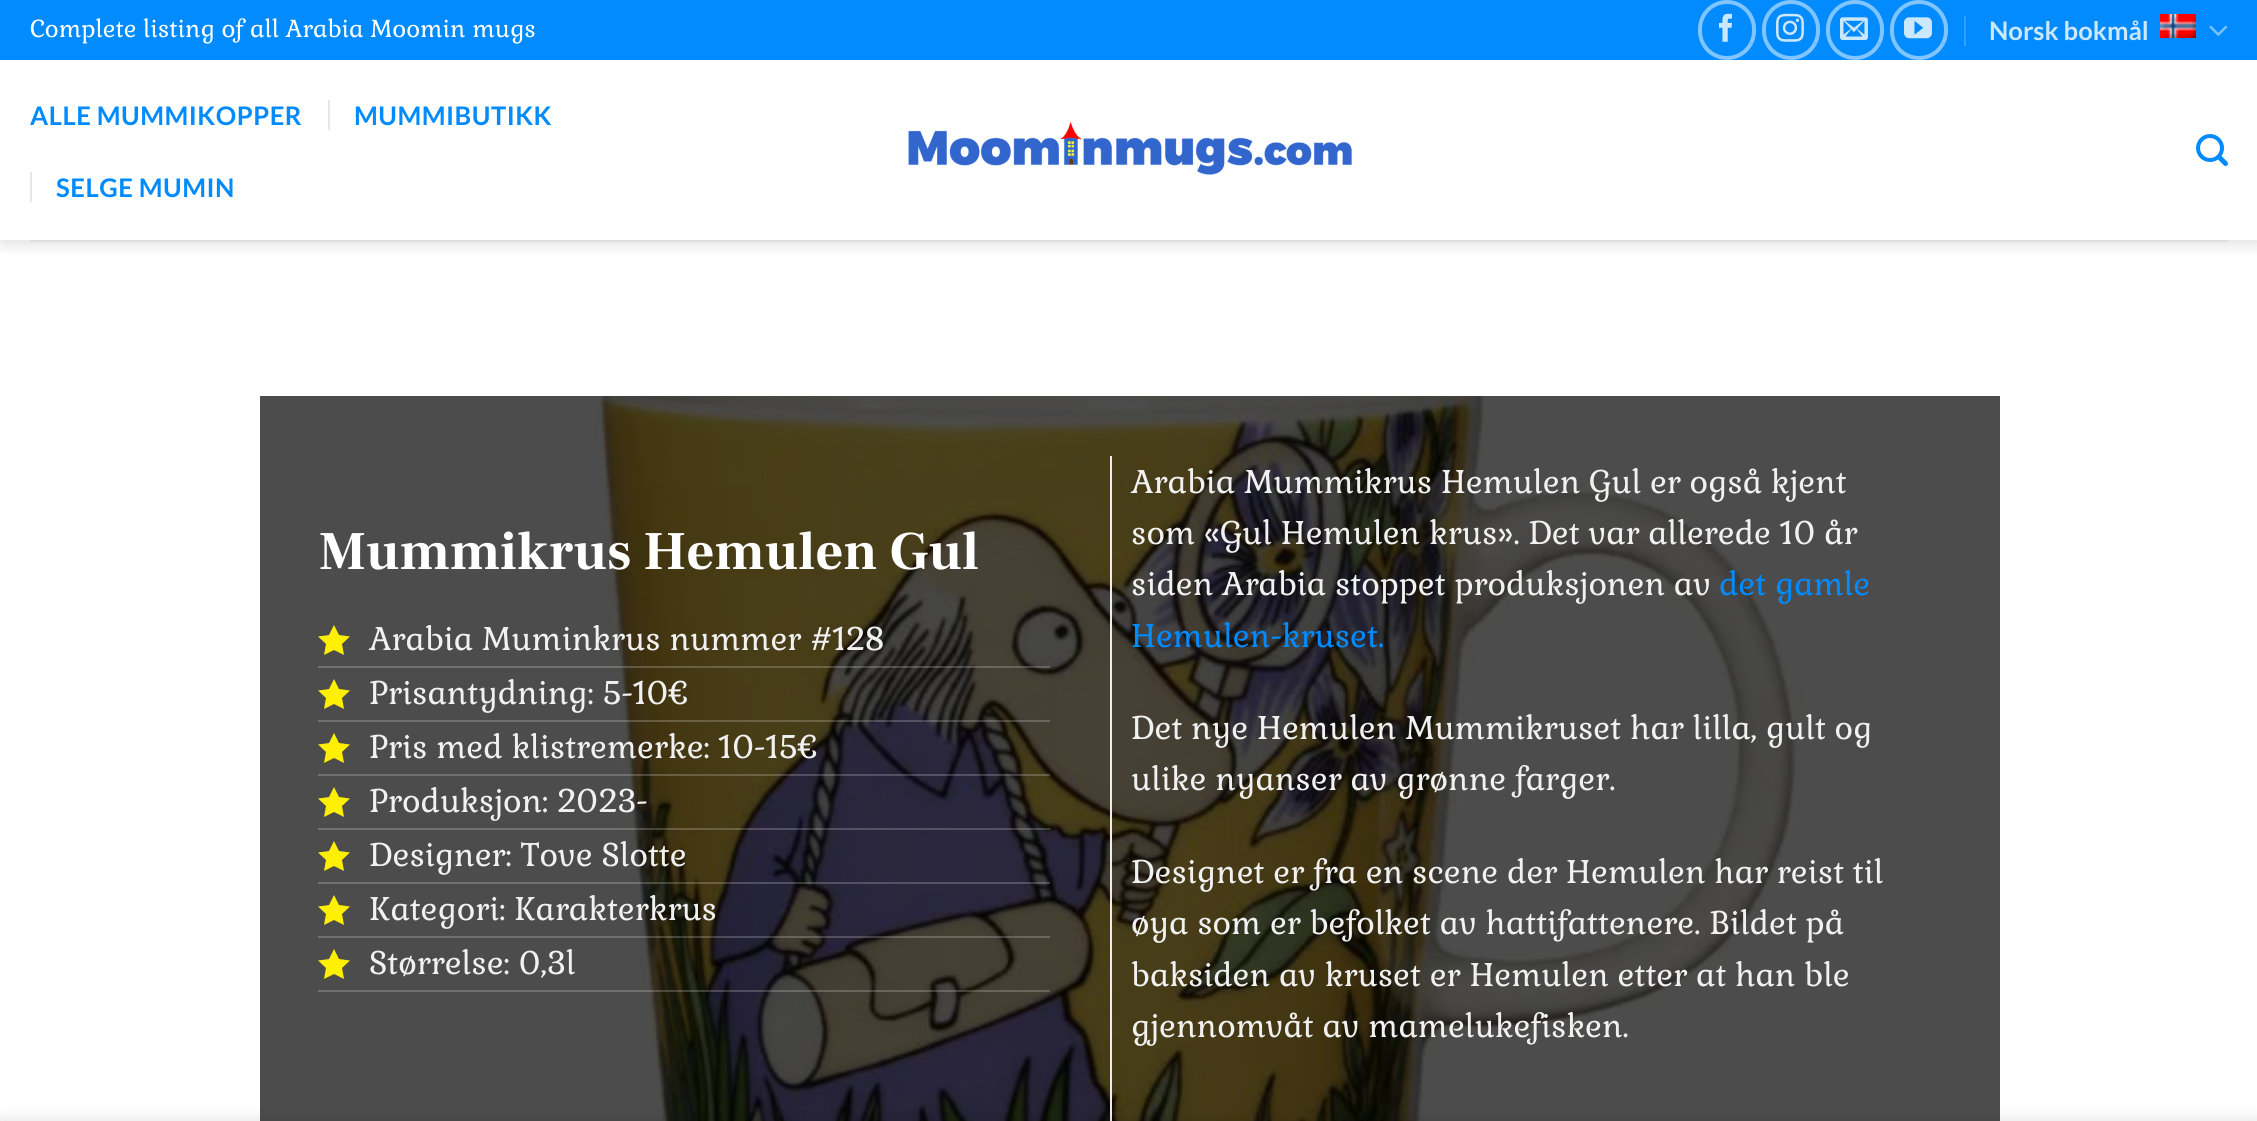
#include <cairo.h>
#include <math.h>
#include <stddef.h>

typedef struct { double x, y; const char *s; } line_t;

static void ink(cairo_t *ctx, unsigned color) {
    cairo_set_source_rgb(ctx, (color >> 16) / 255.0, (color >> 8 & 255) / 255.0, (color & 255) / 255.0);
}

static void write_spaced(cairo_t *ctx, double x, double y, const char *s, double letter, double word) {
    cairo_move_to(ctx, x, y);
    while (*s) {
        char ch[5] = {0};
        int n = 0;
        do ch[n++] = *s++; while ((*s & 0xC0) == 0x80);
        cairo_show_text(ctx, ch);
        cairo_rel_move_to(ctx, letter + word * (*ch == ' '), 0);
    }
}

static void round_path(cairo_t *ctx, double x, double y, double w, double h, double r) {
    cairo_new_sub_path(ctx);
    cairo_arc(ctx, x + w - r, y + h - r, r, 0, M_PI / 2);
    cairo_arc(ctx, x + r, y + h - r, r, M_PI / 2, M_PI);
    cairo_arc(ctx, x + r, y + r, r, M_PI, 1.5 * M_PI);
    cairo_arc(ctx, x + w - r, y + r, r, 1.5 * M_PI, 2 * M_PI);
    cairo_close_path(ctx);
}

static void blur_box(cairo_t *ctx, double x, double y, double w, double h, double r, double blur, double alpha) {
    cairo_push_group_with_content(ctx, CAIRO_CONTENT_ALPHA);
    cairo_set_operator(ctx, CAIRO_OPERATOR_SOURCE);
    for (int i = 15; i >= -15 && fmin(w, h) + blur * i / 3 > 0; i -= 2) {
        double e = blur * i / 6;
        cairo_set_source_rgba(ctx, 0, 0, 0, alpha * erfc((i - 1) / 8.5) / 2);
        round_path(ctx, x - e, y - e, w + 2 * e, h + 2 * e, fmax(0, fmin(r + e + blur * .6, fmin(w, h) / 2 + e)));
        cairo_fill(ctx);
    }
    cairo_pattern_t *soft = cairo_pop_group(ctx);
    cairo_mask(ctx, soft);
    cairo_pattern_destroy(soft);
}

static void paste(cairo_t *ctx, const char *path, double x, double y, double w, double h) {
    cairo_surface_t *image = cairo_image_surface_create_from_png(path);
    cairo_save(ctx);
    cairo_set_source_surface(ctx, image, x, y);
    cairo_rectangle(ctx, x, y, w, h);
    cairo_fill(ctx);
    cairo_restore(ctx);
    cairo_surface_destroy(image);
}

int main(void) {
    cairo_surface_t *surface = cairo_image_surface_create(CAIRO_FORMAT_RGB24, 2257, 1121);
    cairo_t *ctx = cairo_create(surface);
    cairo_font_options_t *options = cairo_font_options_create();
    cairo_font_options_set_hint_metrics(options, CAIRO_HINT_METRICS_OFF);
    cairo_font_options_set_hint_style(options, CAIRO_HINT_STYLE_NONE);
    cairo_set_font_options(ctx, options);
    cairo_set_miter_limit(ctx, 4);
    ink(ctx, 0xFFFFFF);
    cairo_paint(ctx);
    cairo_save(ctx);
    cairo_rectangle(ctx, 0, 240, 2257, 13);
    cairo_clip(ctx);
    ink(ctx, 0x000000);
    blur_box(ctx, 2, 2, 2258, 240, 0, 10, 0.15);
    cairo_restore(ctx);
    ink(ctx, 0x018BFF);
    cairo_rectangle(ctx, 0, 0, 2257, 60);
    cairo_fill(ctx);
    cairo_select_font_face(ctx, "Gabriela", CAIRO_FONT_SLANT_NORMAL, CAIRO_FONT_WEIGHT_NORMAL);
    cairo_set_font_size(ctx, 24);
    ink(ctx, 0xFFFFFF);
    cairo_move_to(ctx, 30, 37);
    cairo_show_text(ctx, "Complete listing of all Arabia Moomin mugs");
    round_path(ctx, 1700, 2, 54, 56, 27);
    ink(ctx, 0x80C5FF);
    cairo_set_line_width(ctx, 4);
    cairo_stroke(ctx);
    paste(ctx, "media/1.png", 1719, 13, 13, 29);
    round_path(ctx, 1764, 2, 54, 56, 27);
    cairo_stroke(ctx);
    paste(ctx, "media/2.png", 1776, 13, 28, 29);
    round_path(ctx, 1828, 2, 54, 56, 27);
    cairo_stroke(ctx);
    paste(ctx, "media/3.png", 1840, 17, 28, 23);
    round_path(ctx, 1892, 2, 54, 56, 27);
    cairo_stroke(ctx);
    paste(ctx, "media/4.png", 1904, 17, 28, 22);
    ink(ctx, 0x34A2FF);
    cairo_rectangle(ctx, 1964, 16, 2, 30);
    cairo_fill(ctx);
    cairo_select_font_face(ctx, "Lato", CAIRO_FONT_SLANT_NORMAL, CAIRO_FONT_WEIGHT_BOLD);
    cairo_set_font_size(ctx, 25.6);
    ink(ctx, 0xCCE8FF);
    cairo_move_to(ctx, 1989, 40);
    cairo_show_text(ctx, "Norsk bokmål");
    paste(ctx, "media/5.png", 2160, 14, 36, 24);
    paste(ctx, "media/6.png", 2209, 25, 19, 11);
    ink(ctx, 0x018BFF);
    write_spaced(ctx, 30, 125, "ALLE MUMMIKOPPER", 0.5, 0);
    ink(ctx, 0xE6E6E6);
    cairo_rectangle(ctx, 328, 100, 2, 30);
    cairo_fill(ctx);
    ink(ctx, 0x018BFF);
    write_spaced(ctx, 354, 125, "MUMMIBUTIKK", 0.5, 0);
    ink(ctx, 0xE6E6E6);
    cairo_rectangle(ctx, 30, 172, 2, 30);
    cairo_fill(ctx);
    ink(ctx, 0x018BFF);
    write_spaced(ctx, 56, 197, "SELGE MUMIN", 0.5, 0);
    paste(ctx, "media/7.png", 908, 121, 444, 54);
    paste(ctx, "media/8.png", 2196, 134, 32, 32);
    ink(ctx, 0xDFDFDF);
    cairo_rectangle(ctx, 30, 240, 2198, 2);
    cairo_fill(ctx);
    paste(ctx, "media/9.png", 260, 396, 1740, 725);
    cairo_select_font_face(ctx, "Frank Ruhl Libre", CAIRO_FONT_SLANT_NORMAL, CAIRO_FONT_WEIGHT_BOLD);
    cairo_set_font_size(ctx, 54.4);
    ink(ctx, 0xFFFFFF);
    cairo_move_to(ctx, 319, 569);
    cairo_show_text(ctx, "Mummikrus Hemulen Gul");
    cairo_set_source_rgba(ctx, 1, 1, 1, 0.2);
    cairo_rectangle(ctx, 318, 666, 732, 2);
    cairo_fill(ctx);
    ink(ctx, 0xFFEF00);
    cairo_new_path(ctx);
    cairo_move_to(ctx, 350, 636.5);
    cairo_line_to(ctx, 339, 635);
    cairo_line_to(ctx, 334, 625);
    cairo_line_to(ctx, 329, 635);
    cairo_line_to(ctx, 318, 636.5);
    cairo_line_to(ctx, 326, 644);
    cairo_line_to(ctx, 324, 655);
    cairo_line_to(ctx, 334, 650);
    cairo_line_to(ctx, 344, 655);
    cairo_line_to(ctx, 342, 644);
    cairo_close_path(ctx);
    cairo_fill(ctx);
    cairo_select_font_face(ctx, "Gabriela", CAIRO_FONT_SLANT_NORMAL, CAIRO_FONT_WEIGHT_NORMAL);
    cairo_set_font_size(ctx, 32);
    ink(ctx, 0xF1F1F1);
    cairo_move_to(ctx, 369, 650);
    cairo_show_text(ctx, "Arabia Muminkrus nummer #128");
    cairo_set_source_rgba(ctx, 1, 1, 1, 0.2);
    cairo_rectangle(ctx, 318, 720, 732, 2);
    cairo_fill(ctx);
    ink(ctx, 0xFFEF00);
    cairo_new_path(ctx);
    cairo_move_to(ctx, 350, 690.5);
    cairo_line_to(ctx, 339, 689);
    cairo_line_to(ctx, 334, 679);
    cairo_line_to(ctx, 329, 689);
    cairo_line_to(ctx, 318, 690.5);
    cairo_line_to(ctx, 326, 698);
    cairo_line_to(ctx, 324, 709);
    cairo_line_to(ctx, 334, 704);
    cairo_line_to(ctx, 344, 709);
    cairo_line_to(ctx, 342, 698);
    cairo_close_path(ctx);
    cairo_fill(ctx);
    ink(ctx, 0xF1F1F1);
    cairo_move_to(ctx, 369, 704);
    cairo_show_text(ctx, "Prisantydning: 5-10€");
    cairo_set_source_rgba(ctx, 1, 1, 1, 0.2);
    cairo_rectangle(ctx, 318, 774, 732, 2);
    cairo_fill(ctx);
    ink(ctx, 0xFFEF00);
    cairo_new_path(ctx);
    cairo_move_to(ctx, 350, 744.5);
    cairo_line_to(ctx, 339, 743);
    cairo_line_to(ctx, 334, 733);
    cairo_line_to(ctx, 329, 743);
    cairo_line_to(ctx, 318, 744.5);
    cairo_line_to(ctx, 326, 752);
    cairo_line_to(ctx, 324, 763);
    cairo_line_to(ctx, 334, 758);
    cairo_line_to(ctx, 344, 763);
    cairo_line_to(ctx, 342, 752);
    cairo_close_path(ctx);
    cairo_fill(ctx);
    ink(ctx, 0xF1F1F1);
    cairo_move_to(ctx, 369, 758);
    cairo_show_text(ctx, "Pris med klistremerke: 10-15€");
    cairo_set_source_rgba(ctx, 1, 1, 1, 0.2);
    cairo_rectangle(ctx, 318, 828, 732, 2);
    cairo_fill(ctx);
    ink(ctx, 0xFFEF00);
    cairo_new_path(ctx);
    cairo_move_to(ctx, 350, 798.5);
    cairo_line_to(ctx, 339, 797);
    cairo_line_to(ctx, 334, 787);
    cairo_line_to(ctx, 329, 797);
    cairo_line_to(ctx, 318, 798.5);
    cairo_line_to(ctx, 326, 806);
    cairo_line_to(ctx, 324, 817);
    cairo_line_to(ctx, 334, 812);
    cairo_line_to(ctx, 344, 817);
    cairo_line_to(ctx, 342, 806);
    cairo_close_path(ctx);
    cairo_fill(ctx);
    ink(ctx, 0xF1F1F1);
    cairo_move_to(ctx, 369, 812);
    cairo_show_text(ctx, "Produksjon: 2023-");
    cairo_set_source_rgba(ctx, 1, 1, 1, 0.2);
    cairo_rectangle(ctx, 318, 882, 732, 2);
    cairo_fill(ctx);
    ink(ctx, 0xFFEF00);
    cairo_new_path(ctx);
    cairo_move_to(ctx, 350, 852.5);
    cairo_line_to(ctx, 339, 851);
    cairo_line_to(ctx, 334, 841);
    cairo_line_to(ctx, 329, 851);
    cairo_line_to(ctx, 318, 852.5);
    cairo_line_to(ctx, 326, 860);
    cairo_line_to(ctx, 324, 871);
    cairo_line_to(ctx, 334, 866);
    cairo_line_to(ctx, 344, 871);
    cairo_line_to(ctx, 342, 860);
    cairo_close_path(ctx);
    cairo_fill(ctx);
    ink(ctx, 0xF1F1F1);
    cairo_move_to(ctx, 369, 866);
    cairo_show_text(ctx, "Designer: Tove Slotte");
    cairo_set_source_rgba(ctx, 1, 1, 1, 0.2);
    cairo_rectangle(ctx, 318, 936, 732, 2);
    cairo_fill(ctx);
    ink(ctx, 0xFFEF00);
    cairo_new_path(ctx);
    cairo_move_to(ctx, 350, 906.5);
    cairo_line_to(ctx, 339, 905);
    cairo_line_to(ctx, 334, 895);
    cairo_line_to(ctx, 329, 905);
    cairo_line_to(ctx, 318, 906.5);
    cairo_line_to(ctx, 326, 914);
    cairo_line_to(ctx, 324, 925);
    cairo_line_to(ctx, 334, 920);
    cairo_line_to(ctx, 344, 925);
    cairo_line_to(ctx, 342, 914);
    cairo_close_path(ctx);
    cairo_fill(ctx);
    ink(ctx, 0xF1F1F1);
    cairo_move_to(ctx, 369, 920);
    cairo_show_text(ctx, "Kategori: Karakterkrus");
    cairo_set_source_rgba(ctx, 1, 1, 1, 0.2);
    cairo_rectangle(ctx, 318, 990, 732, 2);
    cairo_fill(ctx);
    ink(ctx, 0xFFEF00);
    cairo_new_path(ctx);
    cairo_move_to(ctx, 350, 960.5);
    cairo_line_to(ctx, 339, 959);
    cairo_line_to(ctx, 334, 949);
    cairo_line_to(ctx, 329, 959);
    cairo_line_to(ctx, 318, 960.5);
    cairo_line_to(ctx, 326, 968);
    cairo_line_to(ctx, 324, 979);
    cairo_line_to(ctx, 334, 974);
    cairo_line_to(ctx, 344, 979);
    cairo_line_to(ctx, 342, 968);
    cairo_close_path(ctx);
    cairo_fill(ctx);
    ink(ctx, 0xF1F1F1);
    cairo_move_to(ctx, 369, 974);
    cairo_show_text(ctx, "Størrelse: 0,3l");
    ink(ctx, 0xECECEC);
    cairo_rectangle(ctx, 1110, 456, 2, 665);
    cairo_fill(ctx);
    ink(ctx, 0xF1F1F1);
    {
        static const line_t items[] = {
            {1131, 493, "Arabia Mummikrus Hemulen Gul er også kjent"},
            {1131, 544, "som «Gul Hemulen krus». Det var allerede 10 år"},
            {1131, 595, "siden Arabia stoppet produksjonen av"},
        };
        for (size_t i = 0; i < sizeof items / sizeof *items; i++) {
            cairo_move_to(ctx, items[i].x, items[i].y);
            cairo_show_text(ctx, items[i].s);
        }
    }
    ink(ctx, 0x018BFF);
    cairo_move_to(ctx, 1719, 595);
    cairo_show_text(ctx, "det gamle");
    cairo_move_to(ctx, 1131, 647);
    cairo_show_text(ctx, "Hemulen-kruset.");
    ink(ctx, 0xF1F1F1);
    {
        static const line_t items[] = {
            {1131, 739, "Det nye Hemulen Mummikruset har lilla, gult og"},
            {1131, 790, "ulike nyanser av grønne farger."},
            {1131, 883, "Designet er fra en scene der Hemulen har reist til"},
            {1131, 934, "øya som er befolket av hattifattenere. Bildet på"},
            {1131, 986, "baksiden av kruset er Hemulen etter at han ble"},
            {1131, 1037, "gjennomvåt av mamelukefisken."},
        };
        for (size_t i = 0; i < sizeof items / sizeof *items; i++) {
            cairo_move_to(ctx, items[i].x, items[i].y);
            cairo_show_text(ctx, items[i].s);
        }
    }
    ink(ctx, 0x000000);
    blur_box(ctx, 0, 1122, 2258, 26, 0, 9, 0.14);
    cairo_surface_write_to_png(surface, "image.png");
    cairo_font_options_destroy(options);
    cairo_destroy(ctx);
    cairo_surface_destroy(surface);
    return 0;
}
